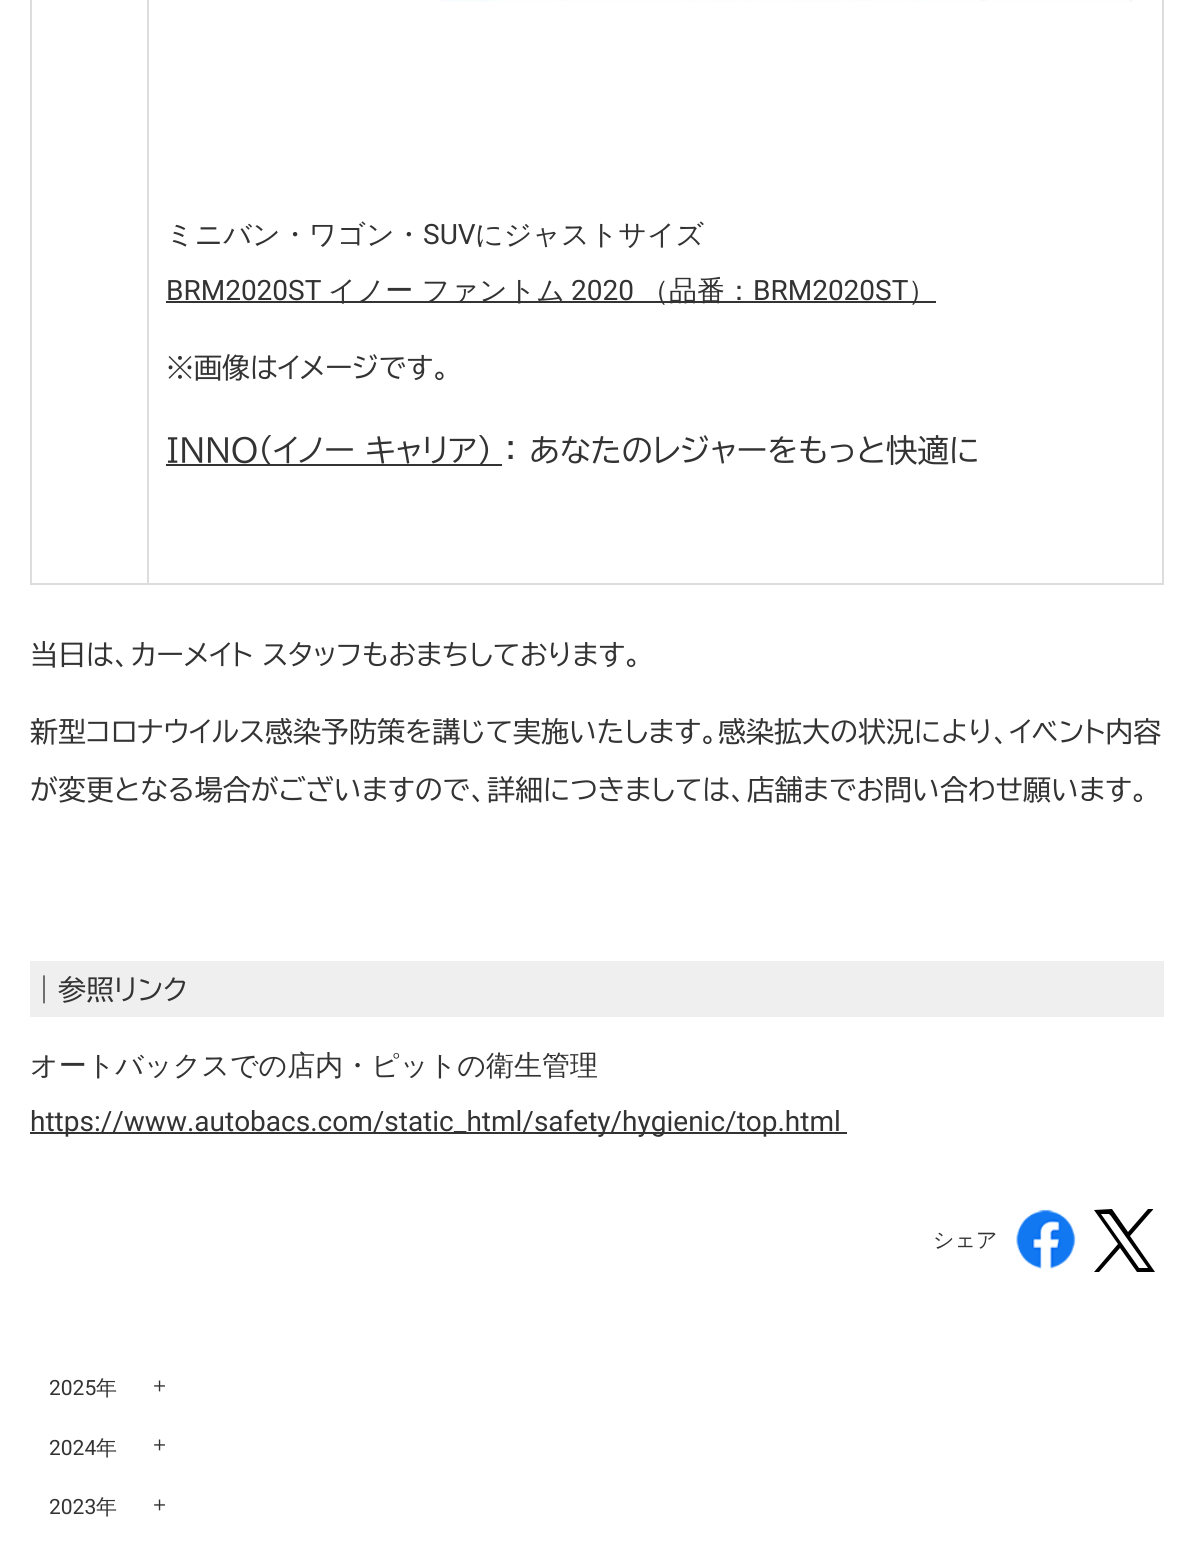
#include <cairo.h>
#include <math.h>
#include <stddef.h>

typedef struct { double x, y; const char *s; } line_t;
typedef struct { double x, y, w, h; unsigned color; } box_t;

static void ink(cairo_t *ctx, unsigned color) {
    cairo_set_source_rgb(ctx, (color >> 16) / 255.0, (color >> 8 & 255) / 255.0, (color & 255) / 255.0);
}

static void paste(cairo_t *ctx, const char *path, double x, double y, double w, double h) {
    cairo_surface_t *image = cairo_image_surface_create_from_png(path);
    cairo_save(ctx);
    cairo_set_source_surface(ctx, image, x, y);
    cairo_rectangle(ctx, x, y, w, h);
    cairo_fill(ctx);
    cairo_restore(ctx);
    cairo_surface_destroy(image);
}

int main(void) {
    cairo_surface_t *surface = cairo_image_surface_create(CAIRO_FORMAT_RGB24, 1192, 1553);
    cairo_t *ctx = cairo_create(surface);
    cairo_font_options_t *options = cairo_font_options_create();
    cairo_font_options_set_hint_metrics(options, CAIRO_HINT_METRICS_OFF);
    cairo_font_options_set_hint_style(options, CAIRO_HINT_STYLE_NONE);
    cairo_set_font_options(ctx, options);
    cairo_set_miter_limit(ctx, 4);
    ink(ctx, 0xFFFFFF);
    cairo_paint(ctx);
    {
        static const box_t items[] = {
            {1162, 0, 2, 585, 0xDDDDDD},
            {147, 583, 1017, 2, 0xDDDDDD},
            {147, 0, 2, 585, 0xDDDDDD},
            {30, 583, 119, 2, 0xDDDDDD},
            {30, 0, 2, 585, 0xDDDDDD},
        };
        for (size_t i = 0; i < sizeof items / sizeof *items; i++) {
            ink(ctx, items[i].color);
            cairo_rectangle(ctx, items[i].x, items[i].y, items[i].w, items[i].h);
            cairo_fill(ctx);
        }
    }
    paste(ctx, "media/1.png", 440, 0, 693, 2);
    cairo_select_font_face(ctx, "WenQuanYi Zen Hei Medium", CAIRO_FONT_SLANT_NORMAL, CAIRO_FONT_WEIGHT_NORMAL);
    cairo_set_font_size(ctx, 28);
    ink(ctx, 0x333333);
    cairo_move_to(ctx, 166, 244);
    cairo_show_text(ctx, "ミニバン・ワゴン・");
    cairo_select_font_face(ctx, "Roboto", CAIRO_FONT_SLANT_NORMAL, CAIRO_FONT_WEIGHT_NORMAL);
    cairo_move_to(ctx, 423, 244);
    cairo_show_text(ctx, "SUV");
    cairo_select_font_face(ctx, "WenQuanYi Zen Hei Medium", CAIRO_FONT_SLANT_NORMAL, CAIRO_FONT_WEIGHT_NORMAL);
    cairo_move_to(ctx, 475, 244);
    cairo_show_text(ctx, "にジャストサイズ");
    cairo_select_font_face(ctx, "Roboto", CAIRO_FONT_SLANT_NORMAL, CAIRO_FONT_WEIGHT_NORMAL);
    cairo_move_to(ctx, 166, 300);
    cairo_show_text(ctx, "BRM2020ST");
    cairo_rectangle(ctx, 166, 301, 770, 2);
    cairo_fill(ctx);
    cairo_select_font_face(ctx, "WenQuanYi Zen Hei Medium", CAIRO_FONT_SLANT_NORMAL, CAIRO_FONT_WEIGHT_NORMAL);
    cairo_move_to(ctx, 328, 300);
    cairo_show_text(ctx, "イノー ファントム");
    cairo_select_font_face(ctx, "Roboto", CAIRO_FONT_SLANT_NORMAL, CAIRO_FONT_WEIGHT_NORMAL);
    cairo_move_to(ctx, 571, 300);
    cairo_show_text(ctx, "2020");
    cairo_select_font_face(ctx, "WenQuanYi Zen Hei Medium", CAIRO_FONT_SLANT_NORMAL, CAIRO_FONT_WEIGHT_NORMAL);
    cairo_move_to(ctx, 641, 300);
    cairo_show_text(ctx, "（品番：");
    cairo_select_font_face(ctx, "Roboto", CAIRO_FONT_SLANT_NORMAL, CAIRO_FONT_WEIGHT_NORMAL);
    cairo_move_to(ctx, 753, 300);
    cairo_show_text(ctx, "BRM2020ST");
    cairo_select_font_face(ctx, "WenQuanYi Zen Hei Medium", CAIRO_FONT_SLANT_NORMAL, CAIRO_FONT_WEIGHT_NORMAL);
    cairo_move_to(ctx, 908, 300);
    cairo_show_text(ctx, "）");
    cairo_select_font_face(ctx, "BIZ UDPGothic", CAIRO_FONT_SLANT_NORMAL, CAIRO_FONT_WEIGHT_NORMAL);
    cairo_move_to(ctx, 166, 378);
    cairo_show_text(ctx, "※画像はイメージです。");
    cairo_rectangle(ctx, 166, 464, 336, 2);
    cairo_fill(ctx);
    cairo_set_font_size(ctx, 31.5);
    cairo_move_to(ctx, 166, 462);
    cairo_show_text(ctx, "INNO(イノー キャリア) ： あなたのレジャーをもっと快適に");
    cairo_set_font_size(ctx, 28);
    {
        static const line_t items[] = {
            {30, 665, "当日は、カーメイト スタッフもおまちしております。"},
            {30, 742, "新型コロナウイルス感染予防策を講じて実施いたします。感染拡大の状況により、イベント内容"},
            {30, 800, "が変更となる場合がございますので、詳細につきましては、店舗までお問い合わせ願います。"},
        };
        for (size_t i = 0; i < sizeof items / sizeof *items; i++) {
            cairo_move_to(ctx, items[i].x, items[i].y);
            cairo_show_text(ctx, items[i].s);
        }
    }
    ink(ctx, 0xEFEFEF);
    cairo_rectangle(ctx, 30, 961, 1134, 56);
    cairo_fill(ctx);
    ink(ctx, 0x333333);
    cairo_move_to(ctx, 30, 1000);
    cairo_show_text(ctx, "｜参照リンク");
    cairo_select_font_face(ctx, "WenQuanYi Zen Hei Medium", CAIRO_FONT_SLANT_NORMAL, CAIRO_FONT_WEIGHT_NORMAL);
    cairo_move_to(ctx, 30, 1075);
    cairo_show_text(ctx, "オートバックスでの店内・ピットの衛生管理");
    cairo_rectangle(ctx, 30, 1132, 817, 2);
    cairo_fill(ctx);
    cairo_select_font_face(ctx, "Roboto", CAIRO_FONT_SLANT_NORMAL, CAIRO_FONT_WEIGHT_NORMAL);
    cairo_move_to(ctx, 30, 1131);
    cairo_show_text(ctx, "https://www.autobacs.com/static_html/safety/hygienic/top.html");
    cairo_select_font_face(ctx, "WenQuanYi Zen Hei Medium", CAIRO_FONT_SLANT_NORMAL, CAIRO_FONT_WEIGHT_NORMAL);
    cairo_set_font_size(ctx, 21);
    cairo_move_to(ctx, 933, 1247);
    cairo_show_text(ctx, "シェア");
    paste(ctx, "media/2.png", 1016, 1209, 60, 60);
    ink(ctx, 0x000000);
    cairo_new_path(ctx);
    cairo_move_to(ctx, 1094, 1210);
    cairo_line_to(ctx, 1118, 1244);
    cairo_line_to(ctx, 1094, 1272);
    cairo_line_to(ctx, 1099, 1272);
    cairo_line_to(ctx, 1120, 1248);
    cairo_line_to(ctx, 1137, 1272);
    cairo_line_to(ctx, 1155, 1272);
    cairo_line_to(ctx, 1130, 1236);
    cairo_line_to(ctx, 1150, 1213);
    cairo_curve_to(ctx, 1150, 1213, 1154, 1209, 1153, 1209);
    cairo_line_to(ctx, 1148, 1209);
    cairo_line_to(ctx, 1128, 1232);
    cairo_line_to(ctx, 1112, 1209);
    cairo_close_path(ctx);
    cairo_move_to(ctx, 1111, 1216);
    cairo_line_to(ctx, 1148, 1268);
    cairo_line_to(ctx, 1139, 1268);
    cairo_line_to(ctx, 1101, 1214);
    cairo_line_to(ctx, 1109, 1214);
    cairo_close_path(ctx);
    cairo_fill(ctx);
    cairo_select_font_face(ctx, "Roboto", CAIRO_FONT_SLANT_NORMAL, CAIRO_FONT_WEIGHT_NORMAL);
    ink(ctx, 0x333333);
    cairo_move_to(ctx, 49, 1395);
    cairo_show_text(ctx, "2025");
    cairo_select_font_face(ctx, "WenQuanYi Zen Hei Medium", CAIRO_FONT_SLANT_NORMAL, CAIRO_FONT_WEIGHT_NORMAL);
    cairo_move_to(ctx, 96, 1395);
    cairo_show_text(ctx, "年");
    cairo_move_to(ctx, 149, 1392);
    cairo_show_text(ctx, "＋");
    cairo_select_font_face(ctx, "Roboto", CAIRO_FONT_SLANT_NORMAL, CAIRO_FONT_WEIGHT_NORMAL);
    cairo_move_to(ctx, 49, 1455);
    cairo_show_text(ctx, "2024");
    cairo_select_font_face(ctx, "WenQuanYi Zen Hei Medium", CAIRO_FONT_SLANT_NORMAL, CAIRO_FONT_WEIGHT_NORMAL);
    cairo_move_to(ctx, 96, 1455);
    cairo_show_text(ctx, "年");
    cairo_move_to(ctx, 149, 1451);
    cairo_show_text(ctx, "＋");
    cairo_select_font_face(ctx, "Roboto", CAIRO_FONT_SLANT_NORMAL, CAIRO_FONT_WEIGHT_NORMAL);
    cairo_move_to(ctx, 49, 1514);
    cairo_show_text(ctx, "2023");
    cairo_select_font_face(ctx, "WenQuanYi Zen Hei Medium", CAIRO_FONT_SLANT_NORMAL, CAIRO_FONT_WEIGHT_NORMAL);
    cairo_move_to(ctx, 96, 1514);
    cairo_show_text(ctx, "年");
    cairo_move_to(ctx, 149, 1511);
    cairo_show_text(ctx, "＋");
    cairo_surface_write_to_png(surface, "image.png");
    cairo_font_options_destroy(options);
    cairo_destroy(ctx);
    cairo_surface_destroy(surface);
    return 0;
}
